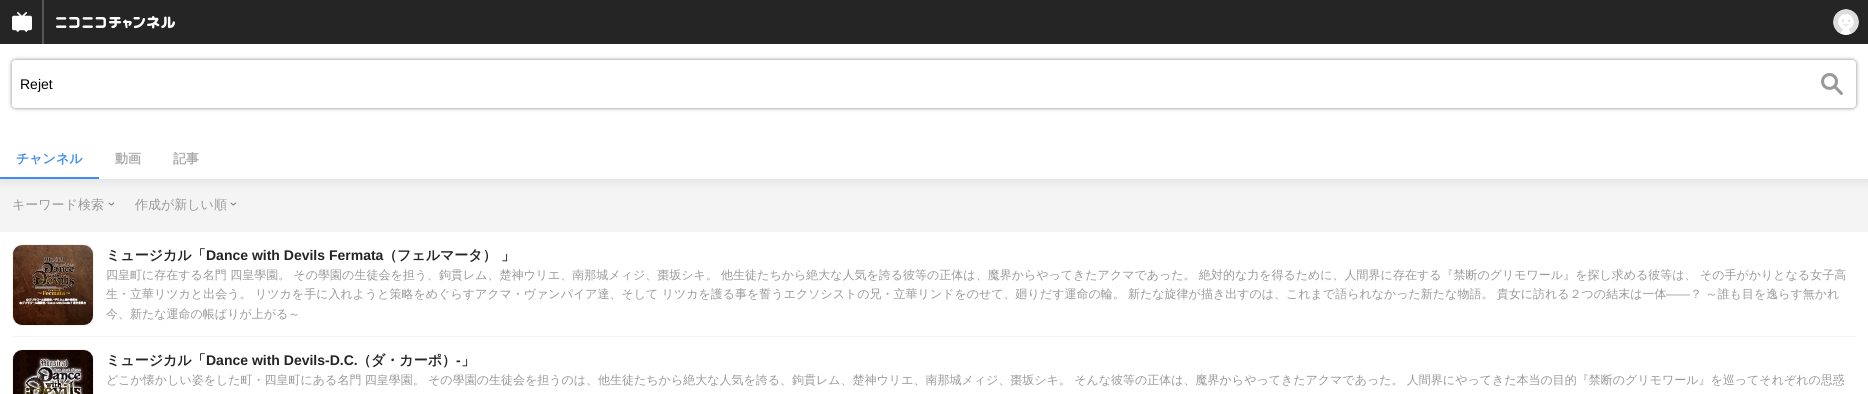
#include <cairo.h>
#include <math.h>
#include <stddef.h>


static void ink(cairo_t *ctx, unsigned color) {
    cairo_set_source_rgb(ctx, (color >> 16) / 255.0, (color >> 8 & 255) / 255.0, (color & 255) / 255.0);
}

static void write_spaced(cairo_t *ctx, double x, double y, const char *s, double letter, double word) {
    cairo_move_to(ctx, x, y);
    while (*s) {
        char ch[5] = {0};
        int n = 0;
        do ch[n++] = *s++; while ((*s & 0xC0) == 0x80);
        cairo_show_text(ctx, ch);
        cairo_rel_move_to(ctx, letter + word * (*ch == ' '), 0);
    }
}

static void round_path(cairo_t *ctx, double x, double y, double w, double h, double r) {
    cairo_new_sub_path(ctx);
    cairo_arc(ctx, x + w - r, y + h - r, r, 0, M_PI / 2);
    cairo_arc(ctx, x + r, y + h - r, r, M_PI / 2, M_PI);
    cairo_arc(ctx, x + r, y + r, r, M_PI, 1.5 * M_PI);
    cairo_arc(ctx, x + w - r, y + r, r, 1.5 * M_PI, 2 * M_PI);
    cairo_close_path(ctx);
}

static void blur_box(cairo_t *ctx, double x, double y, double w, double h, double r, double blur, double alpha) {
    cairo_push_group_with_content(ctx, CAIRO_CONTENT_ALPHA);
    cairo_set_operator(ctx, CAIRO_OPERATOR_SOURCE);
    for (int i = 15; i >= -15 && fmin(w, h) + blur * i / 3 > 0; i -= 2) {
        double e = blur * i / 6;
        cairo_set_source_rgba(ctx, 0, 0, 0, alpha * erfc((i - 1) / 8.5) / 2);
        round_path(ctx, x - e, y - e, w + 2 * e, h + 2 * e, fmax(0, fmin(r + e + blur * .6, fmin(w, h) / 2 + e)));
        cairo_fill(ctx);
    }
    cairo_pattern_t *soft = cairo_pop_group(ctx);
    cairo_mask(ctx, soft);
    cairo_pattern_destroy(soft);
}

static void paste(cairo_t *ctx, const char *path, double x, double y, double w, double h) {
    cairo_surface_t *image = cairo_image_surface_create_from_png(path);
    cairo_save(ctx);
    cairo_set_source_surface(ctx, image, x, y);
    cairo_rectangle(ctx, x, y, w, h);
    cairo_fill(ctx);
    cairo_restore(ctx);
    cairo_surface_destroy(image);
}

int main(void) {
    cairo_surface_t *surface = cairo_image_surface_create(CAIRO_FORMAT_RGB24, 1868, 394);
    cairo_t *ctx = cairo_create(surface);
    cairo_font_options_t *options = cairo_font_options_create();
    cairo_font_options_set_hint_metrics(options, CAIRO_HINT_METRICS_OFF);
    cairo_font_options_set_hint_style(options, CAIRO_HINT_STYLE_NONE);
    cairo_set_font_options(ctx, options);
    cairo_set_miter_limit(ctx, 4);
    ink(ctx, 0xF4F4F4);
    cairo_paint(ctx);
    ink(ctx, 0x7D7D7D);
    blur_box(ctx, 0, 46, 1868, 135, 0, 5, 0.2);
    ink(ctx, 0x252525);
    cairo_rectangle(ctx, 0, 0, 1868, 44);
    cairo_fill(ctx);
    paste(ctx, "media/1.png", 12, 12, 20, 20);
    ink(ctx, 0x555555);
    cairo_rectangle(ctx, 42, 0, 2, 44);
    cairo_fill(ctx);
    paste(ctx, "media/2.png", 56, 16, 119, 13);
    paste(ctx, "media/3.png", 1833, 9, 26, 26);
    ink(ctx, 0xFFFFFF);
    cairo_rectangle(ctx, 0, 44, 1868, 135);
    cairo_fill(ctx);
    ink(ctx, 0x000000);
    blur_box(ctx, 12, 60, 1844, 48, 4, 2, 0.5);
    ink(ctx, 0xFFFFFF);
    round_path(ctx, 12, 60, 1844, 48, 4);
    cairo_fill(ctx);
    cairo_new_path(ctx);
    cairo_move_to(ctx, 16, 60);
    cairo_line_to(ctx, 1808, 60);
    cairo_line_to(ctx, 1808, 108);
    cairo_line_to(ctx, 16, 108);
    cairo_curve_to(ctx, 14, 108, 12, 106, 12, 104);
    cairo_line_to(ctx, 12, 64);
    cairo_curve_to(ctx, 12, 62, 14, 60, 16, 60);
    cairo_close_path(ctx);
    cairo_fill(ctx);
    cairo_select_font_face(ctx, "Liberation Sans", CAIRO_FONT_SLANT_NORMAL, CAIRO_FONT_WEIGHT_NORMAL);
    cairo_set_font_size(ctx, 14);
    ink(ctx, 0x000000);
    cairo_move_to(ctx, 20, 89);
    cairo_show_text(ctx, "Rejet");
    paste(ctx, "media/4.png", 1821, 73, 22, 22);
    ink(ctx, 0x3E8EED);
    cairo_rectangle(ctx, 0, 177, 99, 2);
    cairo_fill(ctx);
    cairo_select_font_face(ctx, "WenQuanYi Zen Hei", CAIRO_FONT_SLANT_NORMAL, CAIRO_FONT_WEIGHT_BOLD);
    cairo_set_font_size(ctx, 13);
    cairo_move_to(ctx, 16, 163);
    cairo_show_text(ctx, "チャンネル");
    ink(ctx, 0xAAAAAA);
    cairo_move_to(ctx, 115, 163);
    cairo_show_text(ctx, "動画");
    cairo_move_to(ctx, 173, 163);
    cairo_show_text(ctx, "記事");
    cairo_select_font_face(ctx, "WenQuanYi Zen Hei Medium", CAIRO_FONT_SLANT_NORMAL, CAIRO_FONT_WEIGHT_NORMAL);
    ink(ctx, 0x999999);
    cairo_move_to(ctx, 12, 209);
    cairo_show_text(ctx, "キーワード検索");
    paste(ctx, "media/5.png", 108, 202, 7, 4);
    cairo_move_to(ctx, 135, 209);
    cairo_show_text(ctx, "作成が新しい順");
    paste(ctx, "media/5.png", 230, 202, 7, 4);
    ink(ctx, 0xFFFFFF);
    cairo_rectangle(ctx, 0, 232, 1868, 162);
    cairo_fill(ctx);
    round_path(ctx, 12.5, 244.5, 81, 81, 9.5);
    ink(ctx, 0xF2F2F2);
    cairo_set_line_width(ctx, 1);
    cairo_stroke(ctx);
    paste(ctx, "media/6.png", 13, 245, 80, 80);
    cairo_select_font_face(ctx, "WenQuanYi Zen Hei", CAIRO_FONT_SLANT_NORMAL, CAIRO_FONT_WEIGHT_BOLD);
    cairo_set_font_size(ctx, 14);
    ink(ctx, 0x252525);
    cairo_move_to(ctx, 106, 260);
    cairo_show_text(ctx, "ミュージカル「");
    cairo_select_font_face(ctx, "Liberation Sans", CAIRO_FONT_SLANT_NORMAL, CAIRO_FONT_WEIGHT_BOLD);
    cairo_move_to(ctx, 206, 260);
    cairo_show_text(ctx, "Dance with Devils Fermata");
    cairo_select_font_face(ctx, "WenQuanYi Zen Hei", CAIRO_FONT_SLANT_NORMAL, CAIRO_FONT_WEIGHT_BOLD);
    cairo_move_to(ctx, 383, 260);
    cairo_show_text(ctx, "（フェルマータ）");
    cairo_move_to(ctx, 501, 260);
    cairo_show_text(ctx, "」");
    cairo_select_font_face(ctx, "WenQuanYi Zen Hei Medium", CAIRO_FONT_SLANT_NORMAL, CAIRO_FONT_WEIGHT_NORMAL);
    cairo_set_font_size(ctx, 12);
    ink(ctx, 0x999999);
    write_spaced(ctx, 106, 279, "四皇町に存在する名門 四皇學園。 その學園の生徒会を担う、鉤貫レム、楚神ウリエ、南那城メィジ、棗坂シキ。 他生徒たちから絶大な人気を誇る彼等の正体は、魔界からやってきたアクマであった。 絶対的な力を得るために、人間界に存在する『禁断のグリモワール』を探し求める彼等は、 その手がかりとなる女子高", 0, -0.25);
    cairo_move_to(ctx, 106, 298);
    cairo_show_text(ctx, "生・立華リツカと出会う。");
    write_spaced(ctx, 255, 298, "リツカを手に入れようと策略をめぐらすアクマ・ヴァンパイア達、そして リツカを護る事を誓うエクソシストの兄・立華リンドをのせて、廻りだす運命の輪。 新たな旋律が描き出すのは、これまで語られなかった新たな物語。 貴女に訪れる２つの結末は一体", 0, -0.25);
    cairo_select_font_face(ctx, "Liberation Sans", CAIRO_FONT_SLANT_NORMAL, CAIRO_FONT_WEIGHT_NORMAL);
    cairo_move_to(ctx, 1666, 298);
    cairo_show_text(ctx, "――");
    cairo_select_font_face(ctx, "WenQuanYi Zen Hei Medium", CAIRO_FONT_SLANT_NORMAL, CAIRO_FONT_WEIGHT_NORMAL);
    cairo_move_to(ctx, 1690, 298);
    cairo_show_text(ctx, "？ ～誰も目を逸らす無かれ");
    cairo_move_to(ctx, 106, 318);
    cairo_show_text(ctx, "今、新たな運命の帳ばりが上がる～");
    ink(ctx, 0xF5F5F5);
    cairo_rectangle(ctx, 12, 336, 1844, 1);
    cairo_fill(ctx);
    round_path(ctx, 12.5, 349.5, 81, 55, 9.5);
    ink(ctx, 0xF2F2F2);
    cairo_stroke(ctx);
    paste(ctx, "media/7.png", 13, 350, 80, 44);
    cairo_select_font_face(ctx, "WenQuanYi Zen Hei", CAIRO_FONT_SLANT_NORMAL, CAIRO_FONT_WEIGHT_BOLD);
    cairo_set_font_size(ctx, 14);
    ink(ctx, 0x252525);
    cairo_move_to(ctx, 106, 365);
    cairo_show_text(ctx, "ミュージカル「");
    cairo_select_font_face(ctx, "Liberation Sans", CAIRO_FONT_SLANT_NORMAL, CAIRO_FONT_WEIGHT_BOLD);
    cairo_move_to(ctx, 206, 365);
    cairo_show_text(ctx, "Dance with Devils-D.C.");
    cairo_select_font_face(ctx, "WenQuanYi Zen Hei", CAIRO_FONT_SLANT_NORMAL, CAIRO_FONT_WEIGHT_BOLD);
    cairo_move_to(ctx, 357, 365);
    cairo_show_text(ctx, "（ダ・カーポ）");
    cairo_select_font_face(ctx, "Liberation Sans", CAIRO_FONT_SLANT_NORMAL, CAIRO_FONT_WEIGHT_BOLD);
    cairo_move_to(ctx, 456, 365);
    cairo_show_text(ctx, "-");
    cairo_select_font_face(ctx, "WenQuanYi Zen Hei", CAIRO_FONT_SLANT_NORMAL, CAIRO_FONT_WEIGHT_BOLD);
    cairo_move_to(ctx, 461, 365);
    cairo_show_text(ctx, "」");
    cairo_select_font_face(ctx, "WenQuanYi Zen Hei Medium", CAIRO_FONT_SLANT_NORMAL, CAIRO_FONT_WEIGHT_NORMAL);
    cairo_set_font_size(ctx, 12);
    ink(ctx, 0x999999);
    write_spaced(ctx, 106, 384, "どこか懐かしい姿をした町・四皇町にある名門 四皇學園。 その學園の生徒会を担うのは、他生徒たちから絶大な人気を誇る、鉤貫レム、楚神ウリエ、南那城メィジ、棗坂シキ。 そんな彼等の正体は、魔界からやってきたアクマであった。 人間界にやってきた本当の目的『禁断のグリモワール』を巡ってそれぞれの思惑", 0, -0.25);
    cairo_surface_write_to_png(surface, "image.png");
    cairo_font_options_destroy(options);
    cairo_destroy(ctx);
    cairo_surface_destroy(surface);
    return 0;
}
